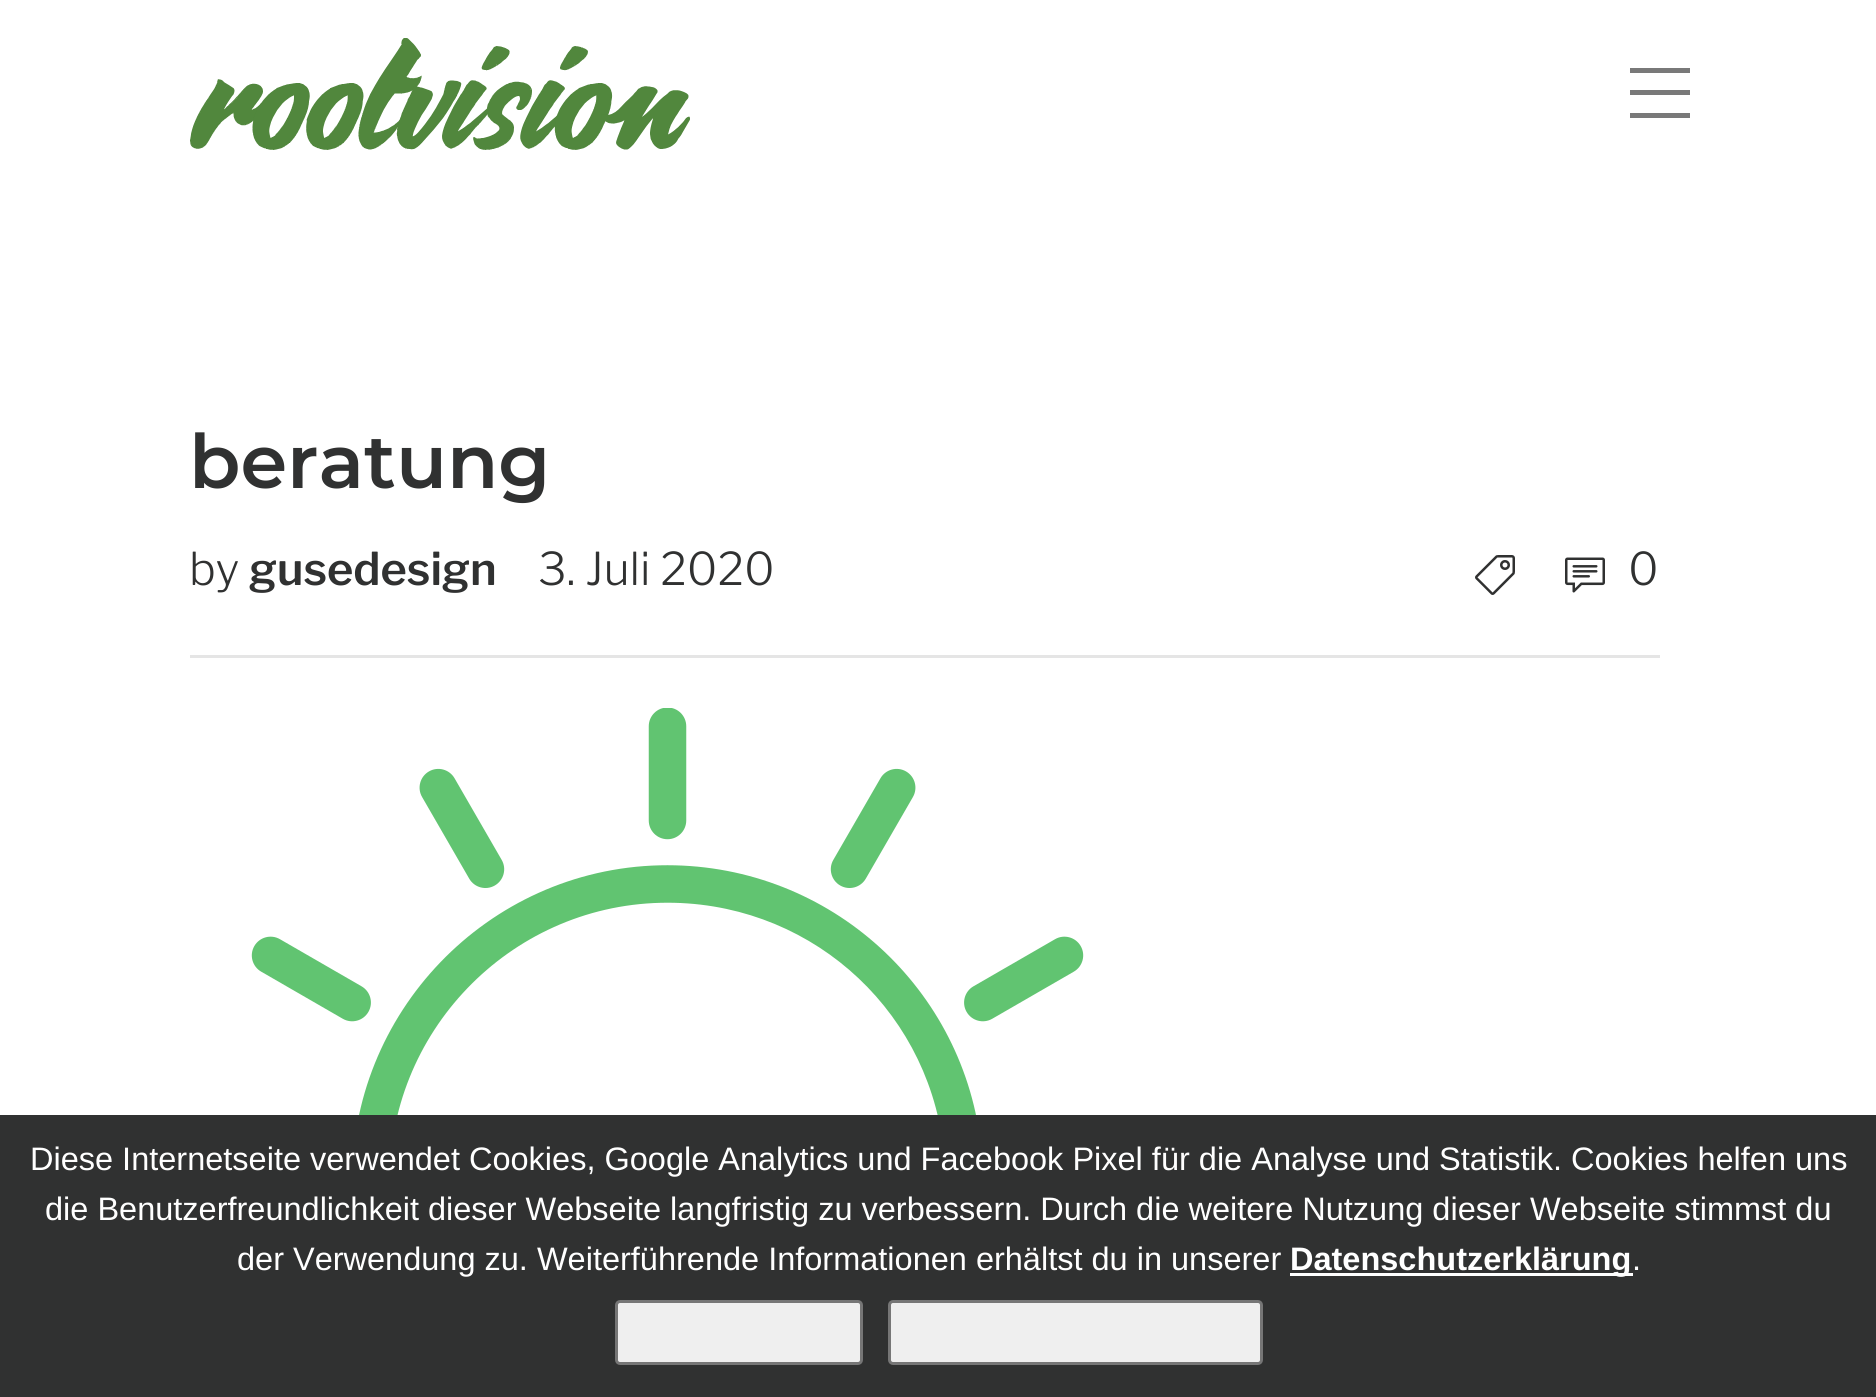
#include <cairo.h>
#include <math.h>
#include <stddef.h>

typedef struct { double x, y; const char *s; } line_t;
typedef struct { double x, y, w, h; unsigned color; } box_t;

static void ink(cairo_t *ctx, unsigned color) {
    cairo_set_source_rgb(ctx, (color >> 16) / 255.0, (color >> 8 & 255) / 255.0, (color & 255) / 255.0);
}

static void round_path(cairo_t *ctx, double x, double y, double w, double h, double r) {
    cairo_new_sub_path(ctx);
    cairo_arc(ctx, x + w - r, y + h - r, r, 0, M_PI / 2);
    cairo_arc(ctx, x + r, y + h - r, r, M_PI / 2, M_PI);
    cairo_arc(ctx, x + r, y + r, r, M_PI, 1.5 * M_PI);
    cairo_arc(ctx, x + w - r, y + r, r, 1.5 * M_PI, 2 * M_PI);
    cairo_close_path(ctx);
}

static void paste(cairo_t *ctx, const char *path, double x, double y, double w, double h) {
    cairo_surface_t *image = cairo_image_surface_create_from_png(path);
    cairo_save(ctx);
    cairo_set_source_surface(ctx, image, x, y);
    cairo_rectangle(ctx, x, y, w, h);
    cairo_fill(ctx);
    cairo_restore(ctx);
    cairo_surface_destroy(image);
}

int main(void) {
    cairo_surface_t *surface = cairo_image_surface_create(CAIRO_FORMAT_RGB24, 1876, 1397);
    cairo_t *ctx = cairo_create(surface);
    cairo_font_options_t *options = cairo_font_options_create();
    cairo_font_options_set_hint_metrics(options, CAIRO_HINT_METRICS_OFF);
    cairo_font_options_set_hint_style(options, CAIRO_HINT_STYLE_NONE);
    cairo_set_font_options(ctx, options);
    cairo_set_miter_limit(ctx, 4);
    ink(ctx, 0xFFFFFF);
    cairo_paint(ctx);
    paste(ctx, "media/1.png", 190, 38, 500, 112);
    {
        static const box_t items[] = {
            {1630, 90, 60, 5, 0x797979},
            {1630, 68, 60, 5, 0x797979},
            {1630, 113, 60, 5, 0x797979},
        };
        for (size_t i = 0; i < sizeof items / sizeof *items; i++) {
            ink(ctx, items[i].color);
            cairo_rectangle(ctx, items[i].x, items[i].y, items[i].w, items[i].h);
            cairo_fill(ctx);
        }
    }
    cairo_select_font_face(ctx, "Montserrat SemiBold", CAIRO_FONT_SLANT_NORMAL, CAIRO_FONT_WEIGHT_NORMAL);
    cairo_set_font_size(ctx, 75);
    ink(ctx, 0x303131);
    cairo_move_to(ctx, 189, 488);
    cairo_show_text(ctx, "beratung");
    ink(ctx, 0xE5E5E5);
    cairo_rectangle(ctx, 190, 655, 1470, 3);
    cairo_fill(ctx);
    cairo_select_font_face(ctx, "Libre Franklin Light", CAIRO_FONT_SLANT_NORMAL, CAIRO_FONT_WEIGHT_NORMAL);
    cairo_set_font_size(ctx, 45);
    ink(ctx, 0x303131);
    cairo_move_to(ctx, 189, 585);
    cairo_show_text(ctx, "by");
    cairo_select_font_face(ctx, "Libre Franklin SemiBold", CAIRO_FONT_SLANT_NORMAL, CAIRO_FONT_WEIGHT_NORMAL);
    cairo_move_to(ctx, 249, 585);
    cairo_show_text(ctx, "gusedesign");
    cairo_select_font_face(ctx, "Libre Franklin Light", CAIRO_FONT_SLANT_NORMAL, CAIRO_FONT_WEIGHT_NORMAL);
    cairo_move_to(ctx, 538, 585);
    cairo_show_text(ctx, "3. Juli 2020");
    paste(ctx, "media/2.png", 1475, 555, 40, 40);
    paste(ctx, "media/3.png", 1565, 557, 40, 36);
    cairo_move_to(ctx, 1628, 585);
    cairo_show_text(ctx, "0");
    paste(ctx, "media/4.png", 251, 708, 833, 407);
    cairo_rectangle(ctx, 0, 1115, 1876, 282);
    cairo_fill(ctx);
    cairo_select_font_face(ctx, "Liberation Sans", CAIRO_FONT_SLANT_NORMAL, CAIRO_FONT_WEIGHT_NORMAL);
    cairo_set_font_size(ctx, 32.5);
    ink(ctx, 0xFFFFFF);
    {
        static const line_t items[] = {
            {30, 1170, "Diese Internetseite verwendet Cookies, Google Analytics und Facebook Pixel für die Analyse und Statistik. Cookies helfen uns"},
            {45, 1220, "die Benutzerfreundlichkeit dieser Webseite langfristig zu verbessern. Durch die weitere Nutzung dieser Webseite stimmst du"},
            {237, 1270, "der Verwendung zu. Weiterführende Informationen erhältst du in unserer"},
        };
        for (size_t i = 0; i < sizeof items / sizeof *items; i++) {
            cairo_move_to(ctx, items[i].x, items[i].y);
            cairo_show_text(ctx, items[i].s);
        }
    }
    cairo_rectangle(ctx, 1290, 1273, 343, 3);
    cairo_fill(ctx);
    cairo_select_font_face(ctx, "Liberation Sans", CAIRO_FONT_SLANT_NORMAL, CAIRO_FONT_WEIGHT_BOLD);
    cairo_move_to(ctx, 1290, 1270);
    cairo_show_text(ctx, "Datenschutzerklärung");
    cairo_select_font_face(ctx, "Liberation Sans", CAIRO_FONT_SLANT_NORMAL, CAIRO_FONT_WEIGHT_NORMAL);
    cairo_move_to(ctx, 1632, 1270);
    cairo_show_text(ctx, ".");
    ink(ctx, 0xEFEFEF);
    round_path(ctx, 616.5, 1301.5, 245, 62, 3.5);
    cairo_fill_preserve(ctx);
    ink(ctx, 0x767676);
    cairo_set_line_width(ctx, 3);
    cairo_stroke(ctx);
    ink(ctx, 0xEFEFEF);
    round_path(ctx, 889.5, 1301.5, 372, 62, 3.5);
    cairo_fill_preserve(ctx);
    ink(ctx, 0x767676);
    cairo_stroke(ctx);
    cairo_surface_write_to_png(surface, "image.png");
    cairo_font_options_destroy(options);
    cairo_destroy(ctx);
    cairo_surface_destroy(surface);
    return 0;
}
